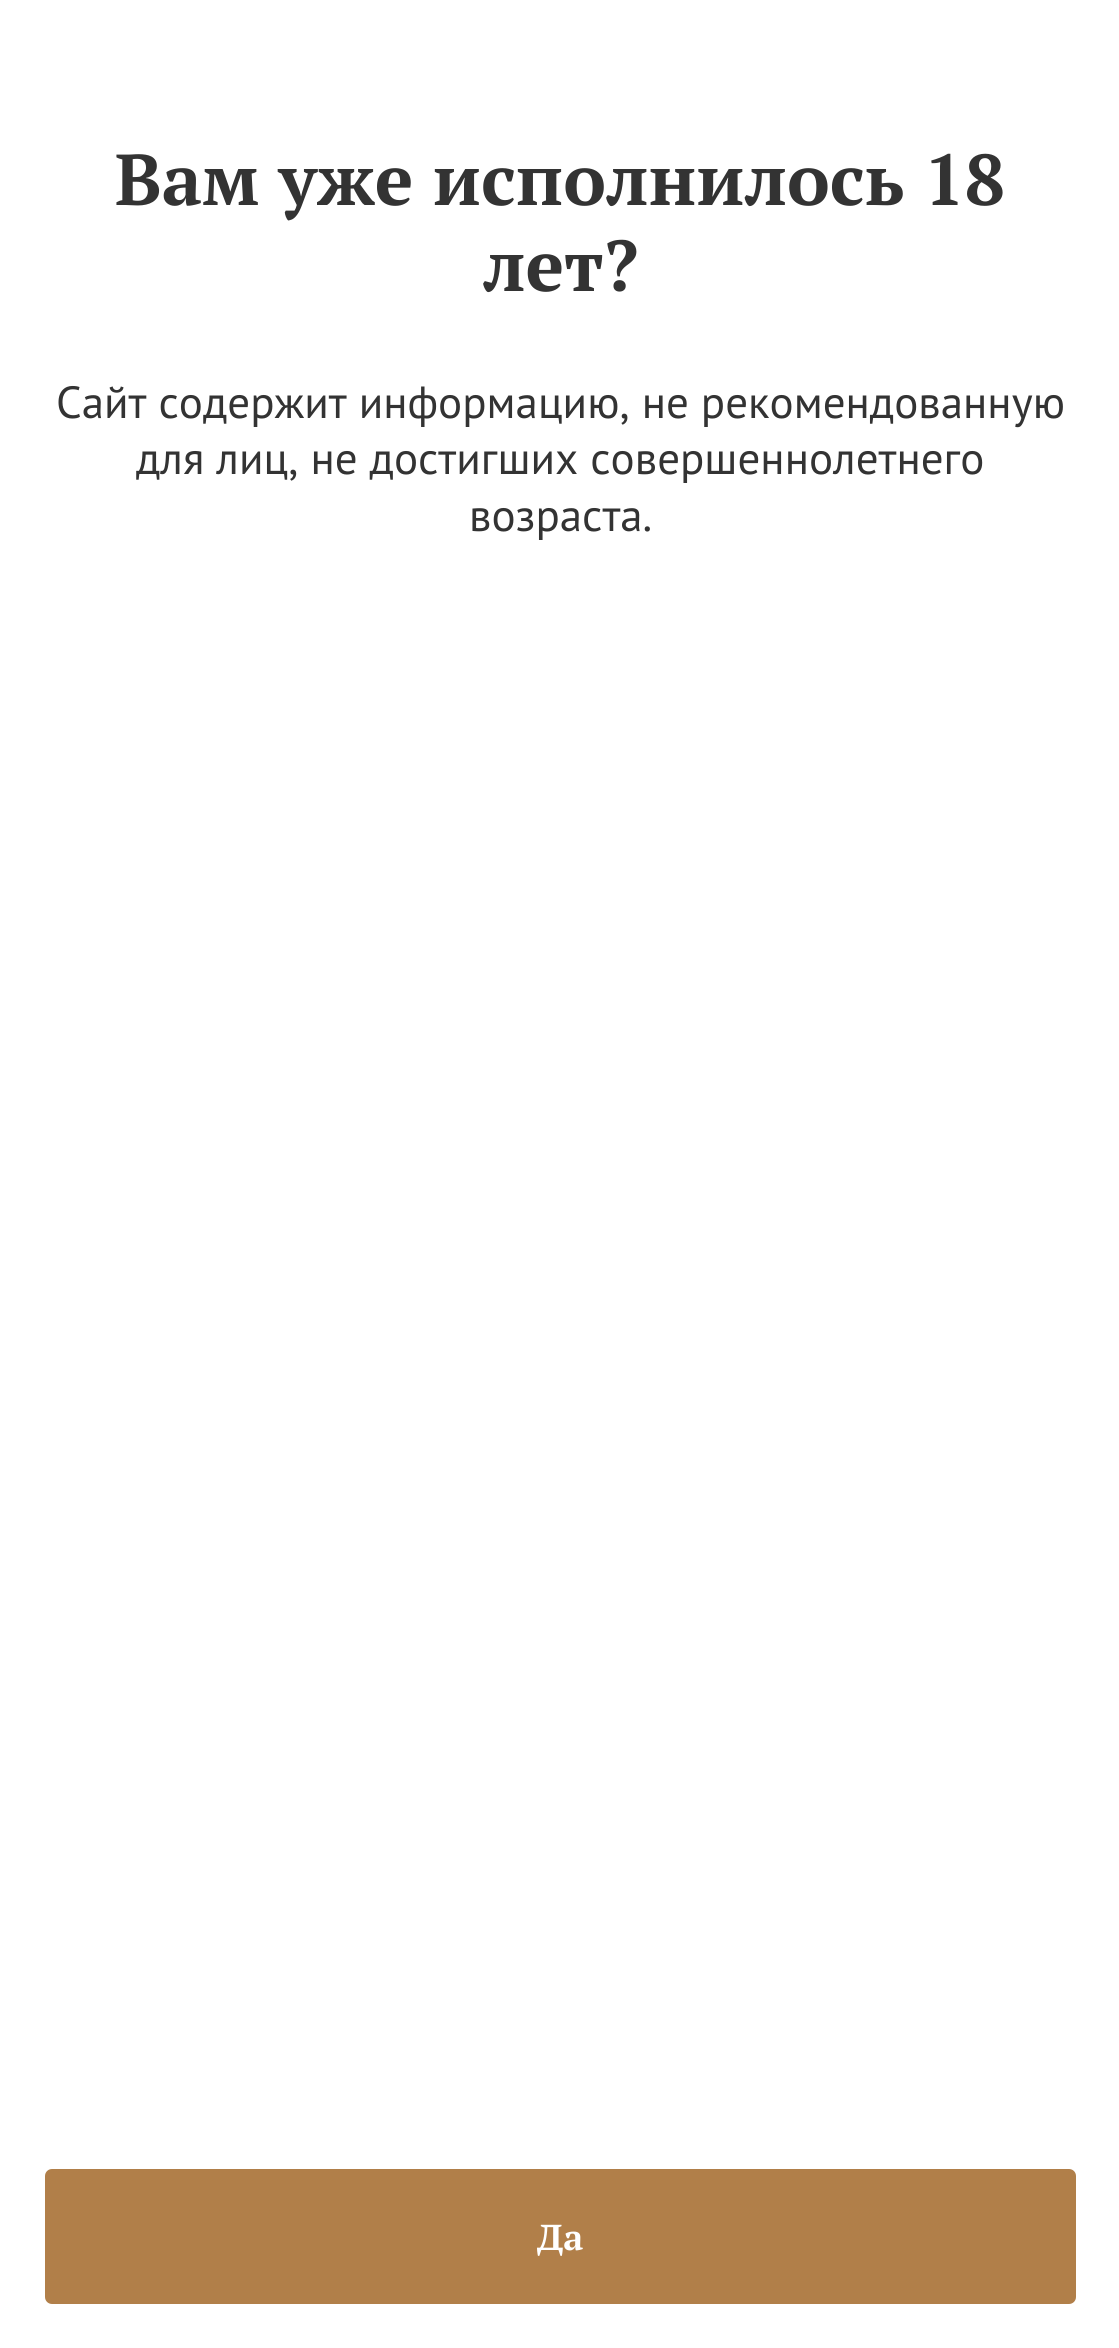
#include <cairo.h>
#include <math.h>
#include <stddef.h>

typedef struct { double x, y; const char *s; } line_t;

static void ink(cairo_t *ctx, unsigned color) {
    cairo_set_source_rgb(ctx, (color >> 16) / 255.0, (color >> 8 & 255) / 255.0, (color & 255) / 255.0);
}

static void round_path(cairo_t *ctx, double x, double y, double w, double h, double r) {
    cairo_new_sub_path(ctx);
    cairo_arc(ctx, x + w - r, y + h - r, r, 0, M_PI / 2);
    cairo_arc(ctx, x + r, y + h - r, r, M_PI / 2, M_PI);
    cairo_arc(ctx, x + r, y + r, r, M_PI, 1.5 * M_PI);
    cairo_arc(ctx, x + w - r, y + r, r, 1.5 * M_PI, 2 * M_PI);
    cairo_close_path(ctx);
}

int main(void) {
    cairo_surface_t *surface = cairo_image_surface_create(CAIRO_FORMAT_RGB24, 1119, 2348);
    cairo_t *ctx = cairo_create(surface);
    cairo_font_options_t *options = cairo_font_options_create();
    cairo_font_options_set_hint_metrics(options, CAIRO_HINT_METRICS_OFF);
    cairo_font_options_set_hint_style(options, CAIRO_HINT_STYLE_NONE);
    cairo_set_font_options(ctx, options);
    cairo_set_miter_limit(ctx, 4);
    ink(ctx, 0xFFFFFF);
    cairo_paint(ctx);
    cairo_select_font_face(ctx, "PT Serif", CAIRO_FONT_SLANT_NORMAL, CAIRO_FONT_WEIGHT_BOLD);
    cairo_set_font_size(ctx, 72);
    ink(ctx, 0x333333);
    cairo_move_to(ctx, 115, 205);
    cairo_show_text(ctx, "Вам уже исполнилось 18");
    cairo_move_to(ctx, 483, 291);
    cairo_show_text(ctx, "лет?");
    cairo_select_font_face(ctx, "PT Sans", CAIRO_FONT_SLANT_NORMAL, CAIRO_FONT_WEIGHT_NORMAL);
    cairo_set_font_size(ctx, 45);
    {
        static const line_t items[] = {
            {56, 418, "Сайт содержит информацию, не рекомендованную"},
            {136, 474, "для лиц, не достигших совершеннолетнего"},
            {469, 531, "возраста."},
        };
        for (size_t i = 0; i < sizeof items / sizeof *items; i++) {
            cairo_move_to(ctx, items[i].x, items[i].y);
            cairo_show_text(ctx, items[i].s);
        }
    }
    ink(ctx, 0xB17F49);
    round_path(ctx, 45, 2169, 1031, 135, 7);
    cairo_fill(ctx);
    cairo_select_font_face(ctx, "PT Serif", CAIRO_FONT_SLANT_NORMAL, CAIRO_FONT_WEIGHT_BOLD);
    cairo_set_font_size(ctx, 36);
    ink(ctx, 0xFFFFFF);
    cairo_move_to(ctx, 537, 2250);
    cairo_show_text(ctx, "Да");
    cairo_surface_write_to_png(surface, "image.png");
    cairo_font_options_destroy(options);
    cairo_destroy(ctx);
    cairo_surface_destroy(surface);
    return 0;
}
